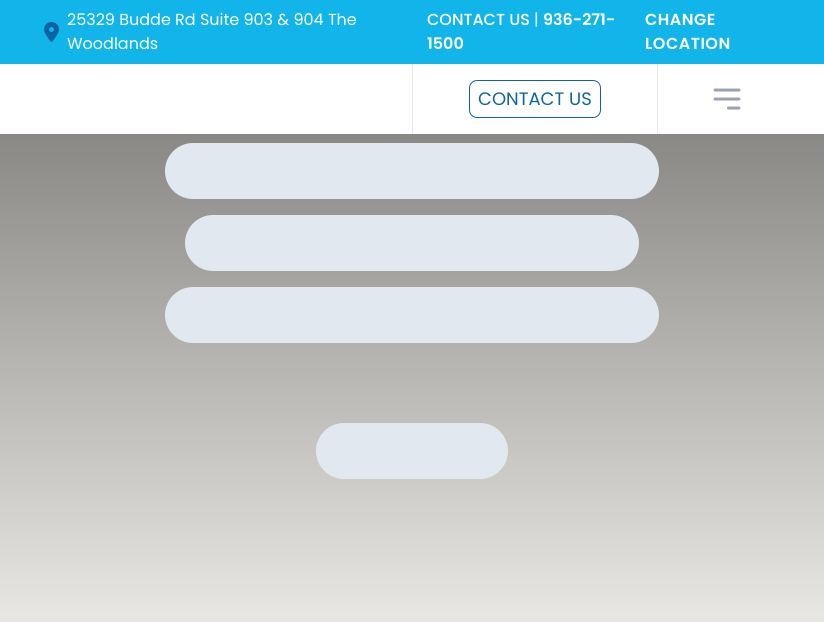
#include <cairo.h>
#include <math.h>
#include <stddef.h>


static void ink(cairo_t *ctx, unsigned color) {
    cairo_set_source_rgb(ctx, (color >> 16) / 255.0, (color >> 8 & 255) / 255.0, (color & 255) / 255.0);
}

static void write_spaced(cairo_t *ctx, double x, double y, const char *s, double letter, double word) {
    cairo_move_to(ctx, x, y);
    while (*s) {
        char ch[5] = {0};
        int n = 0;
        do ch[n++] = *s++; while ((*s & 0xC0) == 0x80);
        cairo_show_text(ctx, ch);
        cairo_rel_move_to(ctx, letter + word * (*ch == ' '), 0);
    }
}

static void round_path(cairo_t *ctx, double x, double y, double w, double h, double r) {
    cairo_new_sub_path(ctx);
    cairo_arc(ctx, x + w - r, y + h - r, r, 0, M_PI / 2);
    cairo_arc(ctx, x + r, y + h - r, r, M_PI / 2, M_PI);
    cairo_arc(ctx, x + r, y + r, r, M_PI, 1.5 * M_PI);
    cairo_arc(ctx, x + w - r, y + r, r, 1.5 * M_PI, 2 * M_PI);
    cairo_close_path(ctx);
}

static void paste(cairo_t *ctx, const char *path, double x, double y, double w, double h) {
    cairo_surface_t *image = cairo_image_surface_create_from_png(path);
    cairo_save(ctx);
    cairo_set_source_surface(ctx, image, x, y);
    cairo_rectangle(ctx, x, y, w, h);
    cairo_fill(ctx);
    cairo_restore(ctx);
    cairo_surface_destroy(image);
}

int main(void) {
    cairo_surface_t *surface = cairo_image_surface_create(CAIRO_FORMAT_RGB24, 824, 622);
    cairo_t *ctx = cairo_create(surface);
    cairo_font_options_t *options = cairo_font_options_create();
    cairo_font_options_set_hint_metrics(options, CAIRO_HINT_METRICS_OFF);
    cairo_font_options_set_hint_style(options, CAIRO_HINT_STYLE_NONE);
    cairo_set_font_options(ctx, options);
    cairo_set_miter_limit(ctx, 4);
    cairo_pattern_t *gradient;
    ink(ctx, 0xFFFFFF);
    cairo_paint(ctx);
    ink(ctx, 0x11B5EA);
    cairo_rectangle(ctx, 0, 0, 824, 64);
    cairo_fill(ctx);
    paste(ctx, "media/1.png", 44, 22, 15, 20);
    cairo_select_font_face(ctx, "Poppins", CAIRO_FONT_SLANT_NORMAL, CAIRO_FONT_WEIGHT_NORMAL);
    cairo_set_font_size(ctx, 16);
    ink(ctx, 0xFFFFFF);
    cairo_move_to(ctx, 67, 25);
    cairo_show_text(ctx, "25329 Budde Rd Suite 903 & 904 The");
    cairo_move_to(ctx, 67, 49);
    cairo_show_text(ctx, "Woodlands");
    cairo_select_font_face(ctx, "Poppins Medium", CAIRO_FONT_SLANT_NORMAL, CAIRO_FONT_WEIGHT_NORMAL);
    cairo_move_to(ctx, 427, 25);
    cairo_show_text(ctx, "CONTACT US");
    cairo_select_font_face(ctx, "Poppins", CAIRO_FONT_SLANT_NORMAL, CAIRO_FONT_WEIGHT_NORMAL);
    cairo_move_to(ctx, 534, 25);
    cairo_show_text(ctx, "|");
    cairo_select_font_face(ctx, "Poppins SemiBold", CAIRO_FONT_SLANT_NORMAL, CAIRO_FONT_WEIGHT_NORMAL);
    cairo_move_to(ctx, 543, 25);
    cairo_show_text(ctx, "936-271-");
    cairo_move_to(ctx, 427, 49);
    cairo_show_text(ctx, "1500");
    write_spaced(ctx, 645, 25, "CHANGE", 0.5, 0);
    write_spaced(ctx, 645, 49, "LOCATION", 0.5, 0);
    ink(ctx, 0xE5E7EB);
    cairo_rectangle(ctx, 412, 64, 1, 70);
    cairo_fill(ctx);
    round_path(ctx, 469.5, 80.5, 131, 37, 7.5);
    ink(ctx, 0x0E64A3);
    cairo_set_line_width(ctx, 1);
    cairo_stroke(ctx);
    cairo_select_font_face(ctx, "Poppins", CAIRO_FONT_SLANT_NORMAL, CAIRO_FONT_WEIGHT_NORMAL);
    cairo_set_font_size(ctx, 18);
    cairo_move_to(ctx, 478, 105);
    cairo_show_text(ctx, "CONTACT US");
    ink(ctx, 0xE5E7EB);
    cairo_rectangle(ctx, 657, 64, 1, 70);
    cairo_fill(ctx);
    cairo_new_path(ctx);
    cairo_move_to(ctx, 715, 90);
    cairo_line_to(ctx, 739, 90);
    cairo_move_to(ctx, 715, 99);
    cairo_line_to(ctx, 739, 99);
    cairo_move_to(ctx, 728.5, 108);
    cairo_line_to(ctx, 739, 108);
    ink(ctx, 0x9CA3AF);
    cairo_set_line_width(ctx, 3);
    cairo_set_line_cap(ctx, CAIRO_LINE_CAP_ROUND);
    cairo_set_line_join(ctx, CAIRO_LINE_JOIN_ROUND);
    cairo_stroke(ctx);
    gradient = cairo_pattern_create_linear(412, 622, 412, 0);
    cairo_pattern_add_color_stop_rgba(gradient, 0.01, 0.91, 0.902, 0.886, 1);
    cairo_pattern_add_color_stop_rgba(gradient, 0.87, 0.502, 0.494, 0.486, 1);
    cairo_set_source(ctx, gradient);
    cairo_pattern_destroy(gradient);
    cairo_rectangle(ctx, 0, 134, 824, 488);
    cairo_fill(ctx);
    ink(ctx, 0xE2E8F0);
    round_path(ctx, 165, 143, 494, 56, 28);
    cairo_fill(ctx);
    round_path(ctx, 185, 215, 454, 56, 28);
    cairo_fill(ctx);
    round_path(ctx, 165, 287, 494, 56, 28);
    cairo_fill(ctx);
    round_path(ctx, 316, 423, 192, 56, 28);
    cairo_fill(ctx);
    cairo_surface_write_to_png(surface, "image.png");
    cairo_font_options_destroy(options);
    cairo_destroy(ctx);
    cairo_surface_destroy(surface);
    return 0;
}
